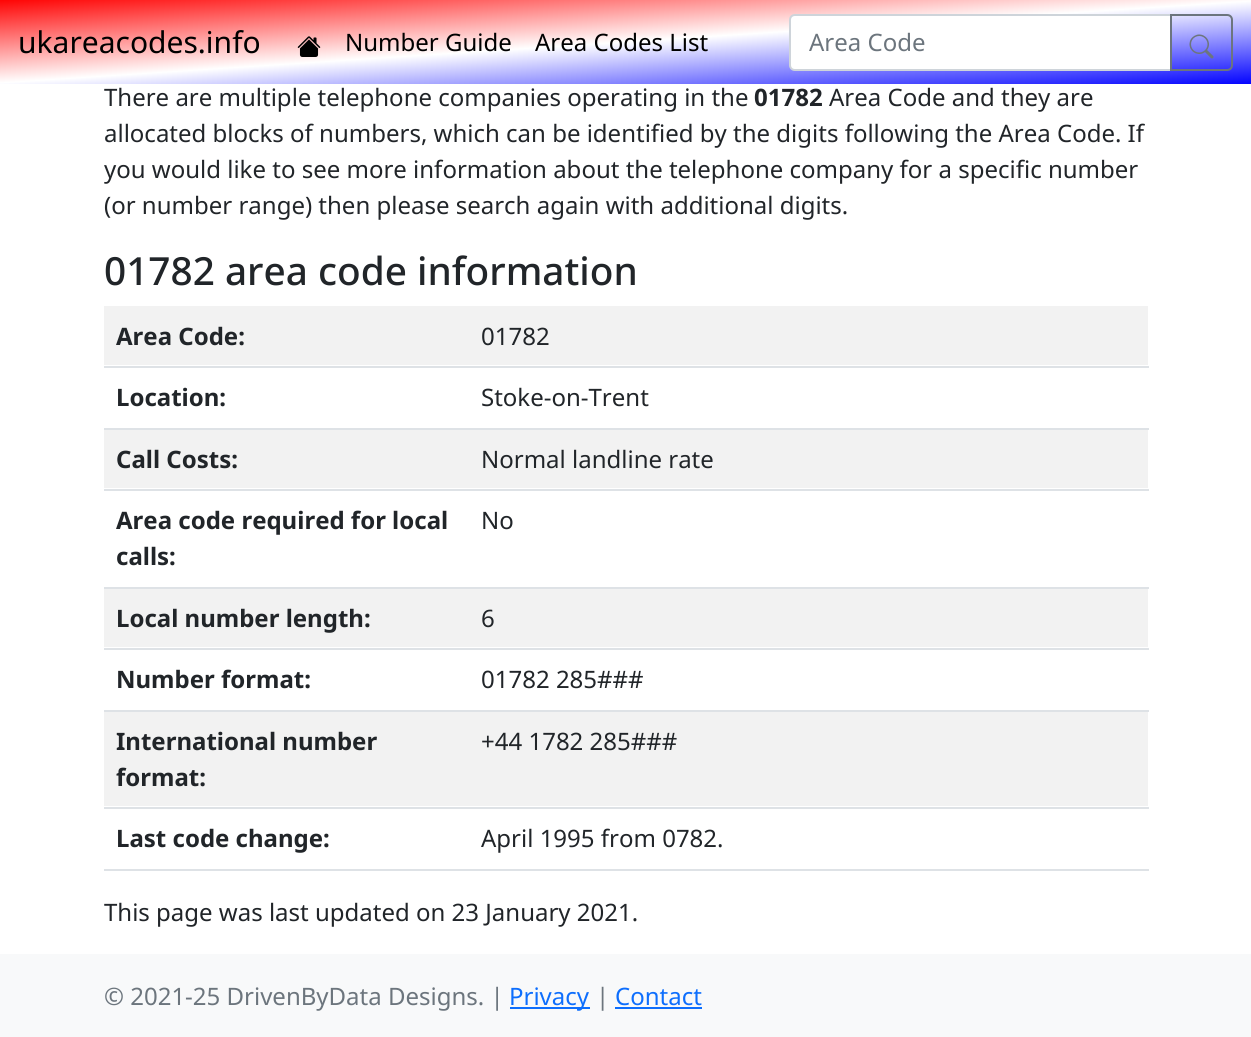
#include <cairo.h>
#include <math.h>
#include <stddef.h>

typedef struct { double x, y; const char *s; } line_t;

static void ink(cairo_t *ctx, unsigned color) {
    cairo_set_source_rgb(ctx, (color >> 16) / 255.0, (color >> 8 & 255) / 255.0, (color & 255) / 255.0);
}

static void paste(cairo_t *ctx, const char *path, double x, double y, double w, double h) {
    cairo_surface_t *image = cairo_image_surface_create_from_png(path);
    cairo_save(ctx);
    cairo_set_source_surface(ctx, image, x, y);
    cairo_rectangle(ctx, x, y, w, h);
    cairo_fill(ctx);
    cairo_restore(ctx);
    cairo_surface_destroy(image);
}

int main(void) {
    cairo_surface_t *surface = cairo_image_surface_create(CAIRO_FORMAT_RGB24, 1251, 1037);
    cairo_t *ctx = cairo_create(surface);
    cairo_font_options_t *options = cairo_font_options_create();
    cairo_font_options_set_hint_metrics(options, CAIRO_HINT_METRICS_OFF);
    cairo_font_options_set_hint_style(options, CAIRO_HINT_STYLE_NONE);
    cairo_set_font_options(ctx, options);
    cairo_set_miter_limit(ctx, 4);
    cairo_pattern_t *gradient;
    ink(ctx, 0xFFFFFF);
    cairo_paint(ctx);
    gradient = cairo_pattern_create_linear(620, -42, 631, 126);
    cairo_pattern_add_color_stop_rgba(gradient, 0, 1, 0, 0, 1);
    cairo_pattern_add_color_stop_rgba(gradient, 0.5, 1, 1, 1, 1);
    cairo_pattern_add_color_stop_rgba(gradient, 1, 0, 0, 1, 1);
    cairo_set_source(ctx, gradient);
    cairo_pattern_destroy(gradient);
    cairo_rectangle(ctx, 0, 0, 1251, 84);
    cairo_fill(ctx);
    cairo_select_font_face(ctx, "Noto Sans", CAIRO_FONT_SLANT_NORMAL, CAIRO_FONT_WEIGHT_NORMAL);
    cairo_set_font_size(ctx, 30);
    ink(ctx, 0x000000);
    cairo_move_to(ctx, 18, 53);
    cairo_show_text(ctx, "ukareacodes.info");
    paste(ctx, "media/1.png", 297, 36, 24, 21);
    cairo_set_font_size(ctx, 24);
    cairo_move_to(ctx, 345, 51);
    cairo_show_text(ctx, "Number Guide");
    cairo_move_to(ctx, 535, 51);
    cairo_show_text(ctx, "Area Codes List");
    ink(ctx, 0xFFFFFF);
    cairo_new_path(ctx);
    cairo_move_to(ctx, 795, 15);
    cairo_line_to(ctx, 1171, 15);
    cairo_line_to(ctx, 1171, 70);
    cairo_line_to(ctx, 795, 70);
    cairo_curve_to(ctx, 792, 70, 790, 68, 790, 65);
    cairo_line_to(ctx, 790, 20);
    cairo_curve_to(ctx, 790, 17, 792, 15, 795, 15);
    cairo_close_path(ctx);
    cairo_fill_preserve(ctx);
    ink(ctx, 0xCED4DA);
    cairo_stroke(ctx);
    ink(ctx, 0x6C757D);
    cairo_move_to(ctx, 809, 51);
    cairo_show_text(ctx, "Area Code");
    cairo_new_path(ctx);
    cairo_move_to(ctx, 1171, 15);
    cairo_line_to(ctx, 1227, 15);
    cairo_curve_to(ctx, 1230, 15, 1232, 17, 1232, 20);
    cairo_line_to(ctx, 1232, 65);
    cairo_curve_to(ctx, 1232, 68, 1230, 70, 1227, 70);
    cairo_line_to(ctx, 1171, 70);
    cairo_close_path(ctx);
    cairo_stroke(ctx);
    paste(ctx, "media/2.png", 1189, 34, 25, 25);
    ink(ctx, 0x212529);
    cairo_move_to(ctx, 104, 106);
    cairo_show_text(ctx, "There are multiple telephone companies operating in the");
    cairo_select_font_face(ctx, "Noto Sans", CAIRO_FONT_SLANT_NORMAL, CAIRO_FONT_WEIGHT_BOLD);
    cairo_move_to(ctx, 754, 106);
    cairo_show_text(ctx, "01782");
    cairo_select_font_face(ctx, "Noto Sans", CAIRO_FONT_SLANT_NORMAL, CAIRO_FONT_WEIGHT_NORMAL);
    {
        static const line_t items[] = {
            {829, 106, "Area Code and they are"},
            {104, 142, "allocated blocks of numbers, which can be identified by the digits following the Area Code. If"},
            {104, 178, "you would like to see more information about the telephone company for a specific number"},
            {104, 214, "(or number range) then please search again with additional digits."},
        };
        for (size_t i = 0; i < sizeof items / sizeof *items; i++) {
            cairo_move_to(ctx, items[i].x, items[i].y);
            cairo_show_text(ctx, items[i].s);
        }
    }
    cairo_select_font_face(ctx, "Noto Sans Medium", CAIRO_FONT_SLANT_NORMAL, CAIRO_FONT_WEIGHT_NORMAL);
    cairo_set_font_size(ctx, 38.75);
    cairo_move_to(ctx, 104, 285);
    cairo_show_text(ctx, "01782 area code information");
    ink(ctx, 0xF2F2F2);
    cairo_rectangle(ctx, 104, 306, 1044, 59);
    cairo_fill(ctx);
    cairo_select_font_face(ctx, "Noto Sans", CAIRO_FONT_SLANT_NORMAL, CAIRO_FONT_WEIGHT_BOLD);
    cairo_set_font_size(ctx, 24);
    ink(ctx, 0x212529);
    cairo_move_to(ctx, 116, 345);
    cairo_show_text(ctx, "Area Code:");
    ink(ctx, 0xDEE2E6);
    cairo_rectangle(ctx, 104, 366, 1045, 2);
    cairo_fill(ctx);
    cairo_select_font_face(ctx, "Noto Sans", CAIRO_FONT_SLANT_NORMAL, CAIRO_FONT_WEIGHT_NORMAL);
    ink(ctx, 0x212529);
    cairo_move_to(ctx, 481, 345);
    cairo_show_text(ctx, "01782");
    cairo_select_font_face(ctx, "Noto Sans", CAIRO_FONT_SLANT_NORMAL, CAIRO_FONT_WEIGHT_BOLD);
    cairo_move_to(ctx, 116, 406);
    cairo_show_text(ctx, "Location:");
    ink(ctx, 0xDEE2E6);
    cairo_rectangle(ctx, 104, 428, 1045, 2);
    cairo_fill(ctx);
    cairo_select_font_face(ctx, "Noto Sans", CAIRO_FONT_SLANT_NORMAL, CAIRO_FONT_WEIGHT_NORMAL);
    ink(ctx, 0x212529);
    cairo_move_to(ctx, 481, 406);
    cairo_show_text(ctx, "Stoke-on-Trent");
    ink(ctx, 0xF2F2F2);
    cairo_rectangle(ctx, 104, 430, 1044, 58);
    cairo_fill(ctx);
    cairo_select_font_face(ctx, "Noto Sans", CAIRO_FONT_SLANT_NORMAL, CAIRO_FONT_WEIGHT_BOLD);
    ink(ctx, 0x212529);
    cairo_move_to(ctx, 116, 468);
    cairo_show_text(ctx, "Call Costs:");
    ink(ctx, 0xDEE2E6);
    cairo_rectangle(ctx, 104, 489, 1045, 2);
    cairo_fill(ctx);
    cairo_select_font_face(ctx, "Noto Sans", CAIRO_FONT_SLANT_NORMAL, CAIRO_FONT_WEIGHT_NORMAL);
    ink(ctx, 0x212529);
    cairo_move_to(ctx, 481, 468);
    cairo_show_text(ctx, "Normal landline rate");
    cairo_select_font_face(ctx, "Noto Sans", CAIRO_FONT_SLANT_NORMAL, CAIRO_FONT_WEIGHT_BOLD);
    cairo_move_to(ctx, 116, 529);
    cairo_show_text(ctx, "Area code required for local");
    cairo_move_to(ctx, 116, 565);
    cairo_show_text(ctx, "calls:");
    ink(ctx, 0xDEE2E6);
    cairo_rectangle(ctx, 104, 587, 1045, 2);
    cairo_fill(ctx);
    cairo_select_font_face(ctx, "Noto Sans", CAIRO_FONT_SLANT_NORMAL, CAIRO_FONT_WEIGHT_NORMAL);
    ink(ctx, 0x212529);
    cairo_move_to(ctx, 481, 529);
    cairo_show_text(ctx, "No");
    ink(ctx, 0xF2F2F2);
    cairo_rectangle(ctx, 104, 589, 1044, 58);
    cairo_fill(ctx);
    cairo_select_font_face(ctx, "Noto Sans", CAIRO_FONT_SLANT_NORMAL, CAIRO_FONT_WEIGHT_BOLD);
    ink(ctx, 0x212529);
    cairo_move_to(ctx, 116, 627);
    cairo_show_text(ctx, "Local number length:");
    ink(ctx, 0xDEE2E6);
    cairo_rectangle(ctx, 104, 648, 1045, 2);
    cairo_fill(ctx);
    cairo_select_font_face(ctx, "Noto Sans", CAIRO_FONT_SLANT_NORMAL, CAIRO_FONT_WEIGHT_NORMAL);
    ink(ctx, 0x212529);
    cairo_move_to(ctx, 481, 627);
    cairo_show_text(ctx, "6");
    cairo_select_font_face(ctx, "Noto Sans", CAIRO_FONT_SLANT_NORMAL, CAIRO_FONT_WEIGHT_BOLD);
    cairo_move_to(ctx, 116, 688);
    cairo_show_text(ctx, "Number format:");
    ink(ctx, 0xDEE2E6);
    cairo_rectangle(ctx, 104, 710, 1045, 2);
    cairo_fill(ctx);
    cairo_select_font_face(ctx, "Noto Sans", CAIRO_FONT_SLANT_NORMAL, CAIRO_FONT_WEIGHT_NORMAL);
    ink(ctx, 0x212529);
    cairo_move_to(ctx, 481, 688);
    cairo_show_text(ctx, "01782 285###");
    ink(ctx, 0xF2F2F2);
    cairo_rectangle(ctx, 104, 712, 1044, 94);
    cairo_fill(ctx);
    cairo_select_font_face(ctx, "Noto Sans", CAIRO_FONT_SLANT_NORMAL, CAIRO_FONT_WEIGHT_BOLD);
    ink(ctx, 0x212529);
    cairo_move_to(ctx, 116, 750);
    cairo_show_text(ctx, "International number");
    cairo_move_to(ctx, 116, 786);
    cairo_show_text(ctx, "format:");
    ink(ctx, 0xDEE2E6);
    cairo_rectangle(ctx, 104, 807, 1045, 2);
    cairo_fill(ctx);
    cairo_select_font_face(ctx, "Noto Sans", CAIRO_FONT_SLANT_NORMAL, CAIRO_FONT_WEIGHT_NORMAL);
    ink(ctx, 0x212529);
    cairo_move_to(ctx, 481, 750);
    cairo_show_text(ctx, "+44 1782 285###");
    cairo_select_font_face(ctx, "Noto Sans", CAIRO_FONT_SLANT_NORMAL, CAIRO_FONT_WEIGHT_BOLD);
    cairo_move_to(ctx, 116, 847);
    cairo_show_text(ctx, "Last code change:");
    ink(ctx, 0xDEE2E6);
    cairo_rectangle(ctx, 104, 869, 1045, 2);
    cairo_fill(ctx);
    cairo_select_font_face(ctx, "Noto Sans", CAIRO_FONT_SLANT_NORMAL, CAIRO_FONT_WEIGHT_NORMAL);
    ink(ctx, 0x212529);
    cairo_move_to(ctx, 481, 847);
    cairo_show_text(ctx, "April 1995 from 0782.");
    cairo_move_to(ctx, 104, 921);
    cairo_show_text(ctx, "This page was last updated on 23 January 2021.");
    ink(ctx, 0xF8F9FA);
    cairo_rectangle(ctx, 0, 954, 1251, 83);
    cairo_fill(ctx);
    ink(ctx, 0x6C757D);
    cairo_move_to(ctx, 104, 1005);
    cairo_show_text(ctx, "© 2021-25 DrivenByData Designs. |");
    ink(ctx, 0x0D6EFD);
    cairo_rectangle(ctx, 510, 1007, 80, 2);
    cairo_fill(ctx);
    cairo_move_to(ctx, 509, 1005);
    cairo_show_text(ctx, "Privacy");
    ink(ctx, 0x6C757D);
    cairo_move_to(ctx, 596, 1005);
    cairo_show_text(ctx, "|");
    ink(ctx, 0x0D6EFD);
    cairo_move_to(ctx, 615, 1005);
    cairo_show_text(ctx, "Contact");
    cairo_rectangle(ctx, 615, 1007, 87, 2);
    cairo_fill(ctx);
    cairo_surface_write_to_png(surface, "image.png");
    cairo_font_options_destroy(options);
    cairo_destroy(ctx);
    cairo_surface_destroy(surface);
    return 0;
}
